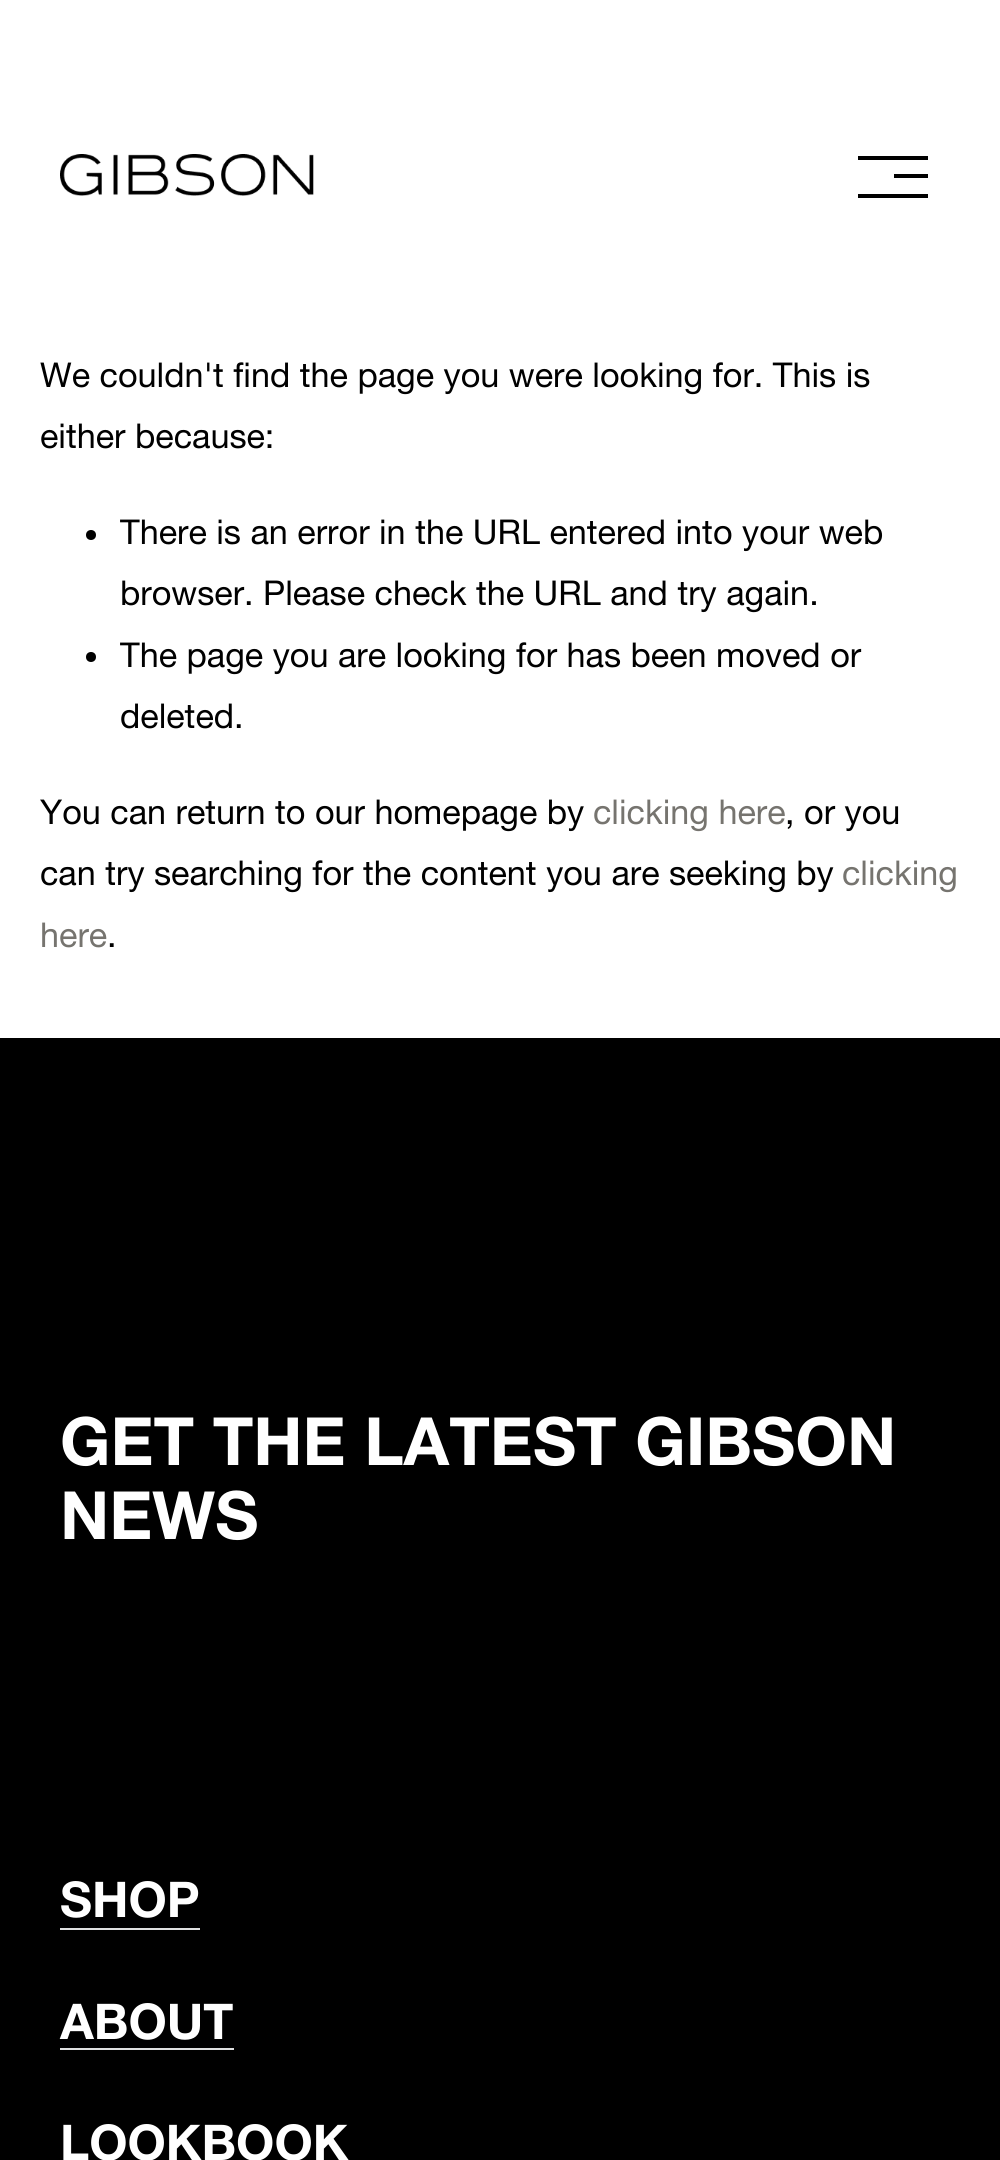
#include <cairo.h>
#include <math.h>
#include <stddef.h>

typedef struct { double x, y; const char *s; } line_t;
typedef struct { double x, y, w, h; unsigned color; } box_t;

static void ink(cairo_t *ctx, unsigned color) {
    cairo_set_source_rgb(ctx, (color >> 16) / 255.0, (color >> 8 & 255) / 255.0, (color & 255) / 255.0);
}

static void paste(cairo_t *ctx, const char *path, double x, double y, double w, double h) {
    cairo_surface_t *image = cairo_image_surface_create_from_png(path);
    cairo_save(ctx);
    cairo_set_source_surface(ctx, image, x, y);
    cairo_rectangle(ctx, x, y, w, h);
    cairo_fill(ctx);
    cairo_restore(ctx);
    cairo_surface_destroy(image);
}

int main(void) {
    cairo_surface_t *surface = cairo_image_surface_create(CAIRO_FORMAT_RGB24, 1000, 2160);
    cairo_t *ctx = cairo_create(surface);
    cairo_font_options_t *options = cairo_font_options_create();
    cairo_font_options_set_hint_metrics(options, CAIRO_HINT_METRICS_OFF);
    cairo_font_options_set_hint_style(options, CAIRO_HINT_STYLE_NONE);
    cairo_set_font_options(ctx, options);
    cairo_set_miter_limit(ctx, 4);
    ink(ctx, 0xFFFFFF);
    cairo_paint(ctx);
    paste(ctx, "media/1.png", 60, 154, 254, 42);
    {
        static const box_t items[] = {
            {858, 156, 70, 4, 0x000000},
            {894, 174, 34, 4, 0x000000},
            {858, 194, 70, 4, 0x000000},
        };
        for (size_t i = 0; i < sizeof items / sizeof *items; i++) {
            ink(ctx, items[i].color);
            cairo_rectangle(ctx, items[i].x, items[i].y, items[i].w, items[i].h);
            cairo_fill(ctx);
        }
    }
    cairo_select_font_face(ctx, "Helvetica Neue", CAIRO_FONT_SLANT_NORMAL, CAIRO_FONT_WEIGHT_NORMAL);
    cairo_set_font_size(ctx, 34.2);
    cairo_move_to(ctx, 40, 387);
    cairo_show_text(ctx, "We couldn't find the page you were looking for. This is");
    cairo_move_to(ctx, 40, 448);
    cairo_show_text(ctx, "either because:");
    cairo_new_path(ctx);
    cairo_arc(ctx, 91, 535, 5, 0, 2 * M_PI);
    cairo_fill(ctx);
    cairo_move_to(ctx, 120, 544);
    cairo_show_text(ctx, "There is an error in the URL entered into your web");
    cairo_move_to(ctx, 120, 605);
    cairo_show_text(ctx, "browser. Please check the URL and try again.");
    cairo_new_path(ctx);
    cairo_arc(ctx, 91, 657, 5, 0, 2 * M_PI);
    cairo_fill(ctx);
    {
        static const line_t items[] = {
            {120, 667, "The page you are looking for has been moved or"},
            {120, 728, "deleted."},
            {40, 824, "You can return to our homepage by"},
        };
        for (size_t i = 0; i < sizeof items / sizeof *items; i++) {
            cairo_move_to(ctx, items[i].x, items[i].y);
            cairo_show_text(ctx, items[i].s);
        }
    }
    ink(ctx, 0x76746F);
    cairo_move_to(ctx, 593, 824);
    cairo_show_text(ctx, "clicking here");
    ink(ctx, 0x000000);
    cairo_move_to(ctx, 785, 824);
    cairo_show_text(ctx, ", or you");
    cairo_move_to(ctx, 40, 885);
    cairo_show_text(ctx, "can try searching for the content you are seeking by");
    ink(ctx, 0x76746F);
    cairo_move_to(ctx, 842, 885);
    cairo_show_text(ctx, "clicking");
    cairo_move_to(ctx, 40, 947);
    cairo_show_text(ctx, "here");
    ink(ctx, 0x000000);
    cairo_move_to(ctx, 107, 947);
    cairo_show_text(ctx, ".");
    cairo_rectangle(ctx, 0, 1038, 1000, 1122);
    cairo_fill(ctx);
    cairo_select_font_face(ctx, "Helvetica Neue", CAIRO_FONT_SLANT_NORMAL, CAIRO_FONT_WEIGHT_BOLD);
    cairo_set_font_size(ctx, 66.5);
    ink(ctx, 0xFFFFFF);
    cairo_move_to(ctx, 60, 1465);
    cairo_show_text(ctx, "GET THE LATEST GIBSON");
    cairo_move_to(ctx, 60, 1539);
    cairo_show_text(ctx, "NEWS");
    cairo_set_font_size(ctx, 49.25);
    cairo_move_to(ctx, 60, 1917);
    cairo_show_text(ctx, "SHOP");
    ink(ctx, 0xDFE0E1);
    cairo_rectangle(ctx, 60, 1928, 140, 2);
    cairo_fill(ctx);
    ink(ctx, 0xFFFFFF);
    cairo_move_to(ctx, 60, 2039);
    cairo_show_text(ctx, "ABOUT");
    ink(ctx, 0xDFE0E1);
    cairo_rectangle(ctx, 60, 2048, 174, 2);
    cairo_fill(ctx);
    ink(ctx, 0xFFFFFF);
    cairo_move_to(ctx, 60, 2160);
    cairo_show_text(ctx, "LOOKBOOK");
    cairo_surface_write_to_png(surface, "image.png");
    cairo_font_options_destroy(options);
    cairo_destroy(ctx);
    cairo_surface_destroy(surface);
    return 0;
}
